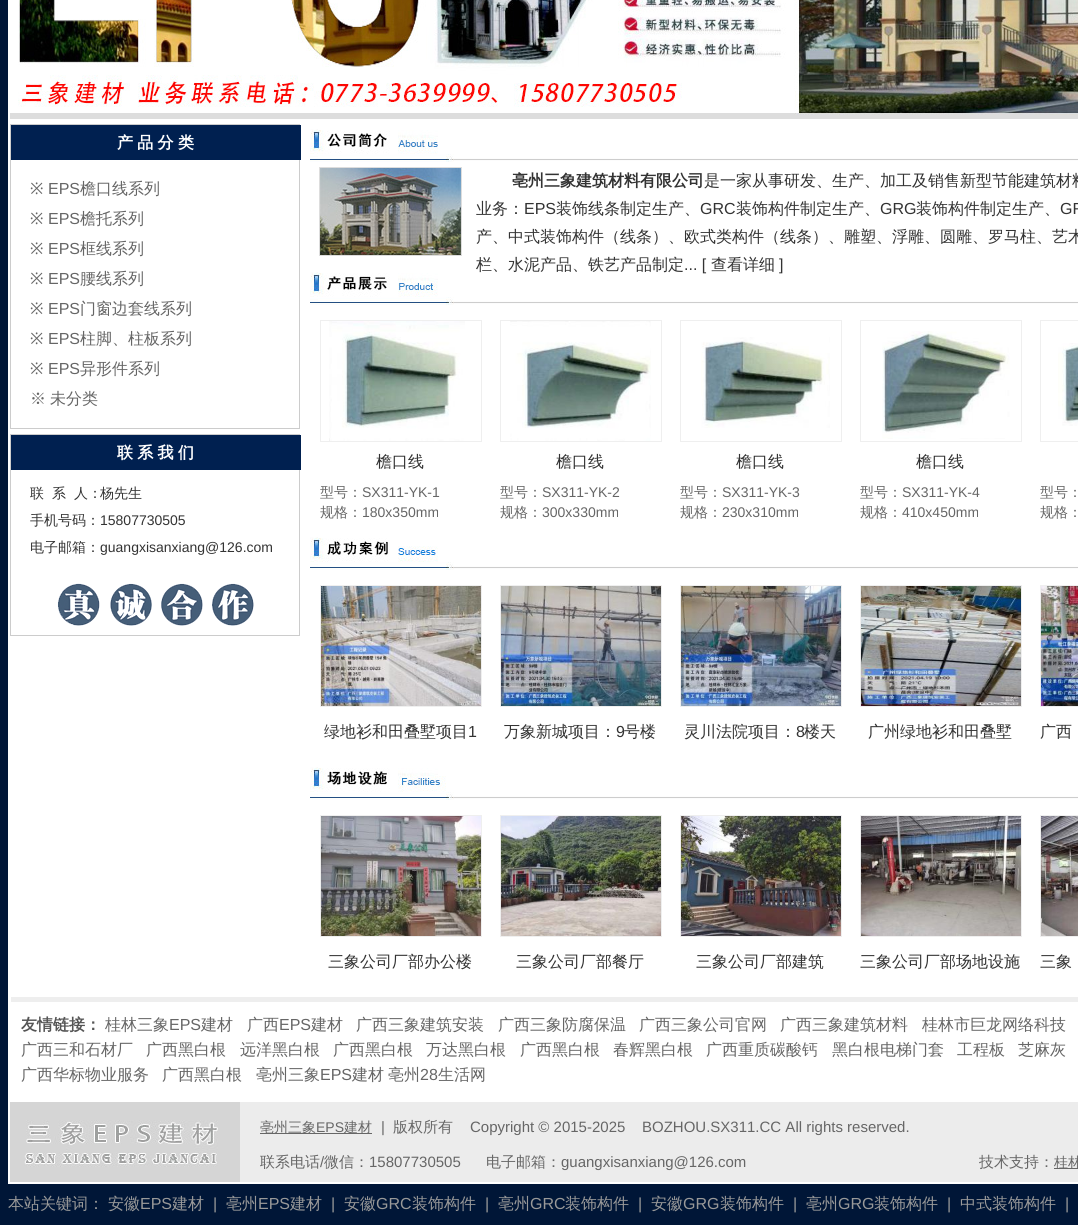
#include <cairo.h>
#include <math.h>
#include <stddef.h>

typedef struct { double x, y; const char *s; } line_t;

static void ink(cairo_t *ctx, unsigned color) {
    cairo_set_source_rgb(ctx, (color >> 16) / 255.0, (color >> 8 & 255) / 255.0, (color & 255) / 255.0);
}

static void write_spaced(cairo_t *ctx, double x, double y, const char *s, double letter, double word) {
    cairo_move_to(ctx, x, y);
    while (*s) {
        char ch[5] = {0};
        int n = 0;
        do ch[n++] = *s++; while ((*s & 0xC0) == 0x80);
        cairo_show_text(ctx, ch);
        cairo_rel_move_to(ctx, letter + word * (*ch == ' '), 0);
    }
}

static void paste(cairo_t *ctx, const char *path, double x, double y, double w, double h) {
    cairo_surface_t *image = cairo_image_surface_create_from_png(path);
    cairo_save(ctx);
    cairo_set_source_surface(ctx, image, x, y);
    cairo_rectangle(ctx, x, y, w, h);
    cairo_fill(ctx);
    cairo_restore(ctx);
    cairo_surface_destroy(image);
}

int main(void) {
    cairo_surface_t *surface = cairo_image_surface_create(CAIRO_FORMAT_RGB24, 1078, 1225);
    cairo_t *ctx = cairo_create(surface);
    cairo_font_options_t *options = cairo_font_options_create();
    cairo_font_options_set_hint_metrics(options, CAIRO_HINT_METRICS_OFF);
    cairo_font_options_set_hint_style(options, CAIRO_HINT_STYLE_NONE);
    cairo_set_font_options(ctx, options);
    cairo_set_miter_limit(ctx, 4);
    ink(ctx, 0x001637);
    cairo_paint(ctx);
    ink(ctx, 0xFFFFFF);
    cairo_rectangle(ctx, 8, 0, 1070, 1184);
    cairo_fill(ctx);
    paste(ctx, "media/1.png", 10, 0, 1068, 119);
    cairo_rectangle(ctx, 10.5, 124.5, 289, 304);
    ink(ctx, 0xCCCCCC);
    cairo_set_line_width(ctx, 1);
    cairo_stroke(ctx);
    ink(ctx, 0x002050);
    cairo_rectangle(ctx, 11, 125, 290, 35);
    cairo_fill(ctx);
    cairo_select_font_face(ctx, "WenQuanYi Zen Hei", CAIRO_FONT_SLANT_NORMAL, CAIRO_FONT_WEIGHT_BOLD);
    cairo_set_font_size(ctx, 16);
    ink(ctx, 0xFFFFFF);
    write_spaced(ctx, 117, 148, "产 品 分 类", 0, -0.5);
    cairo_select_font_face(ctx, "Noto Sans", CAIRO_FONT_SLANT_NORMAL, CAIRO_FONT_WEIGHT_NORMAL);
    ink(ctx, 0x666666);
    cairo_move_to(ctx, 30, 194);
    cairo_show_text(ctx, "※");
    cairo_select_font_face(ctx, "Liberation Sans", CAIRO_FONT_SLANT_NORMAL, CAIRO_FONT_WEIGHT_NORMAL);
    cairo_move_to(ctx, 48, 194);
    cairo_show_text(ctx, "EPS");
    cairo_select_font_face(ctx, "WenQuanYi Zen Hei Medium", CAIRO_FONT_SLANT_NORMAL, CAIRO_FONT_WEIGHT_NORMAL);
    cairo_move_to(ctx, 80, 194);
    cairo_show_text(ctx, "檐口线系列");
    cairo_select_font_face(ctx, "Noto Sans", CAIRO_FONT_SLANT_NORMAL, CAIRO_FONT_WEIGHT_NORMAL);
    cairo_move_to(ctx, 30, 224);
    cairo_show_text(ctx, "※");
    cairo_select_font_face(ctx, "Liberation Sans", CAIRO_FONT_SLANT_NORMAL, CAIRO_FONT_WEIGHT_NORMAL);
    cairo_move_to(ctx, 48, 224);
    cairo_show_text(ctx, "EPS");
    cairo_select_font_face(ctx, "WenQuanYi Zen Hei Medium", CAIRO_FONT_SLANT_NORMAL, CAIRO_FONT_WEIGHT_NORMAL);
    cairo_move_to(ctx, 80, 224);
    cairo_show_text(ctx, "檐托系列");
    cairo_select_font_face(ctx, "Noto Sans", CAIRO_FONT_SLANT_NORMAL, CAIRO_FONT_WEIGHT_NORMAL);
    cairo_move_to(ctx, 30, 254);
    cairo_show_text(ctx, "※");
    cairo_select_font_face(ctx, "Liberation Sans", CAIRO_FONT_SLANT_NORMAL, CAIRO_FONT_WEIGHT_NORMAL);
    cairo_move_to(ctx, 48, 254);
    cairo_show_text(ctx, "EPS");
    cairo_select_font_face(ctx, "WenQuanYi Zen Hei Medium", CAIRO_FONT_SLANT_NORMAL, CAIRO_FONT_WEIGHT_NORMAL);
    cairo_move_to(ctx, 80, 254);
    cairo_show_text(ctx, "框线系列");
    cairo_select_font_face(ctx, "Noto Sans", CAIRO_FONT_SLANT_NORMAL, CAIRO_FONT_WEIGHT_NORMAL);
    cairo_move_to(ctx, 30, 284);
    cairo_show_text(ctx, "※");
    cairo_select_font_face(ctx, "Liberation Sans", CAIRO_FONT_SLANT_NORMAL, CAIRO_FONT_WEIGHT_NORMAL);
    cairo_move_to(ctx, 48, 284);
    cairo_show_text(ctx, "EPS");
    cairo_select_font_face(ctx, "WenQuanYi Zen Hei Medium", CAIRO_FONT_SLANT_NORMAL, CAIRO_FONT_WEIGHT_NORMAL);
    cairo_move_to(ctx, 80, 284);
    cairo_show_text(ctx, "腰线系列");
    cairo_select_font_face(ctx, "Noto Sans", CAIRO_FONT_SLANT_NORMAL, CAIRO_FONT_WEIGHT_NORMAL);
    cairo_move_to(ctx, 30, 314);
    cairo_show_text(ctx, "※");
    cairo_select_font_face(ctx, "Liberation Sans", CAIRO_FONT_SLANT_NORMAL, CAIRO_FONT_WEIGHT_NORMAL);
    cairo_move_to(ctx, 48, 314);
    cairo_show_text(ctx, "EPS");
    cairo_select_font_face(ctx, "WenQuanYi Zen Hei Medium", CAIRO_FONT_SLANT_NORMAL, CAIRO_FONT_WEIGHT_NORMAL);
    cairo_move_to(ctx, 80, 314);
    cairo_show_text(ctx, "门窗边套线系列");
    cairo_select_font_face(ctx, "Noto Sans", CAIRO_FONT_SLANT_NORMAL, CAIRO_FONT_WEIGHT_NORMAL);
    cairo_move_to(ctx, 30, 344);
    cairo_show_text(ctx, "※");
    cairo_select_font_face(ctx, "Liberation Sans", CAIRO_FONT_SLANT_NORMAL, CAIRO_FONT_WEIGHT_NORMAL);
    cairo_move_to(ctx, 48, 344);
    cairo_show_text(ctx, "EPS");
    cairo_select_font_face(ctx, "WenQuanYi Zen Hei Medium", CAIRO_FONT_SLANT_NORMAL, CAIRO_FONT_WEIGHT_NORMAL);
    cairo_move_to(ctx, 80, 344);
    cairo_show_text(ctx, "柱脚、柱板系列");
    cairo_select_font_face(ctx, "Noto Sans", CAIRO_FONT_SLANT_NORMAL, CAIRO_FONT_WEIGHT_NORMAL);
    cairo_move_to(ctx, 30, 374);
    cairo_show_text(ctx, "※");
    cairo_select_font_face(ctx, "Liberation Sans", CAIRO_FONT_SLANT_NORMAL, CAIRO_FONT_WEIGHT_NORMAL);
    cairo_move_to(ctx, 48, 374);
    cairo_show_text(ctx, "EPS");
    cairo_select_font_face(ctx, "WenQuanYi Zen Hei Medium", CAIRO_FONT_SLANT_NORMAL, CAIRO_FONT_WEIGHT_NORMAL);
    {
        static const line_t items[] = {
            {80, 374, "异形件系列"},
            {30, 404, "※"},
            {50, 404, "未分类"},
        };
        for (size_t i = 0; i < sizeof items / sizeof *items; i++) {
            cairo_move_to(ctx, items[i].x, items[i].y);
            cairo_show_text(ctx, items[i].s);
        }
    }
    cairo_rectangle(ctx, 10.5, 434.5, 289, 201);
    ink(ctx, 0xCCCCCC);
    cairo_stroke(ctx);
    ink(ctx, 0x002050);
    cairo_rectangle(ctx, 11, 435, 290, 35);
    cairo_fill(ctx);
    cairo_select_font_face(ctx, "WenQuanYi Zen Hei", CAIRO_FONT_SLANT_NORMAL, CAIRO_FONT_WEIGHT_BOLD);
    ink(ctx, 0xFFFFFF);
    write_spaced(ctx, 117, 458, "联 系 我 们", 0, -0.5);
    cairo_select_font_face(ctx, "WenQuanYi Zen Hei Medium", CAIRO_FONT_SLANT_NORMAL, CAIRO_FONT_WEIGHT_NORMAL);
    cairo_set_font_size(ctx, 14);
    ink(ctx, 0x333333);
    {
        static const line_t items[] = {
            {30, 498, "联"},
            {52, 498, "系"},
            {74, 498, "人："},
            {100, 498, "杨先生"},
            {30, 525, "手机号码："},
        };
        for (size_t i = 0; i < sizeof items / sizeof *items; i++) {
            cairo_move_to(ctx, items[i].x, items[i].y);
            cairo_show_text(ctx, items[i].s);
        }
    }
    cairo_select_font_face(ctx, "Liberation Sans", CAIRO_FONT_SLANT_NORMAL, CAIRO_FONT_WEIGHT_NORMAL);
    cairo_move_to(ctx, 100, 525);
    cairo_show_text(ctx, "15807730505");
    cairo_select_font_face(ctx, "WenQuanYi Zen Hei Medium", CAIRO_FONT_SLANT_NORMAL, CAIRO_FONT_WEIGHT_NORMAL);
    cairo_move_to(ctx, 30, 552);
    cairo_show_text(ctx, "电子邮箱：");
    cairo_select_font_face(ctx, "Liberation Sans", CAIRO_FONT_SLANT_NORMAL, CAIRO_FONT_WEIGHT_NORMAL);
    cairo_move_to(ctx, 100, 552);
    cairo_show_text(ctx, "guangxisanxiang@126.com");
    paste(ctx, "media/2.png", 57, 583, 197, 43);
    paste(ctx, "media/3.png", 310, 129, 768, 33);
    cairo_rectangle(ctx, 319.5, 167.5, 142, 88);
    ink(ctx, 0xDDDDDD);
    cairo_stroke(ctx);
    paste(ctx, "media/4.png", 320, 168, 141, 87);
    cairo_select_font_face(ctx, "WenQuanYi Zen Hei", CAIRO_FONT_SLANT_NORMAL, CAIRO_FONT_WEIGHT_BOLD);
    cairo_set_font_size(ctx, 16);
    ink(ctx, 0x333333);
    cairo_move_to(ctx, 512, 186);
    cairo_show_text(ctx, "亳州三象建筑材料有限公司");
    cairo_select_font_face(ctx, "WenQuanYi Zen Hei Medium", CAIRO_FONT_SLANT_NORMAL, CAIRO_FONT_WEIGHT_NORMAL);
    cairo_move_to(ctx, 704, 186);
    cairo_show_text(ctx, "是一家从事研发、生产、加工及销售新型节能建筑材料");
    cairo_move_to(ctx, 476, 214);
    cairo_show_text(ctx, "业务：");
    cairo_select_font_face(ctx, "Liberation Sans", CAIRO_FONT_SLANT_NORMAL, CAIRO_FONT_WEIGHT_NORMAL);
    cairo_move_to(ctx, 524, 214);
    cairo_show_text(ctx, "EPS");
    cairo_select_font_face(ctx, "WenQuanYi Zen Hei Medium", CAIRO_FONT_SLANT_NORMAL, CAIRO_FONT_WEIGHT_NORMAL);
    cairo_move_to(ctx, 556, 214);
    cairo_show_text(ctx, "装饰线条制定生产、");
    cairo_select_font_face(ctx, "Liberation Sans", CAIRO_FONT_SLANT_NORMAL, CAIRO_FONT_WEIGHT_NORMAL);
    cairo_move_to(ctx, 700, 214);
    cairo_show_text(ctx, "GRC");
    cairo_select_font_face(ctx, "WenQuanYi Zen Hei Medium", CAIRO_FONT_SLANT_NORMAL, CAIRO_FONT_WEIGHT_NORMAL);
    cairo_move_to(ctx, 736, 214);
    cairo_show_text(ctx, "装饰构件制定生产、");
    cairo_select_font_face(ctx, "Liberation Sans", CAIRO_FONT_SLANT_NORMAL, CAIRO_FONT_WEIGHT_NORMAL);
    cairo_move_to(ctx, 880, 214);
    cairo_show_text(ctx, "GRG");
    cairo_select_font_face(ctx, "WenQuanYi Zen Hei Medium", CAIRO_FONT_SLANT_NORMAL, CAIRO_FONT_WEIGHT_NORMAL);
    cairo_move_to(ctx, 916, 214);
    cairo_show_text(ctx, "装饰构件制定生产、");
    cairo_select_font_face(ctx, "Liberation Sans", CAIRO_FONT_SLANT_NORMAL, CAIRO_FONT_WEIGHT_NORMAL);
    cairo_move_to(ctx, 1060, 214);
    cairo_show_text(ctx, "GR");
    cairo_select_font_face(ctx, "WenQuanYi Zen Hei Medium", CAIRO_FONT_SLANT_NORMAL, CAIRO_FONT_WEIGHT_NORMAL);
    cairo_move_to(ctx, 476, 242);
    cairo_show_text(ctx, "产、中式装饰构件（线条）、欧式类构件（线条）、雕塑、浮雕、圆雕、罗马柱、艺术");
    paste(ctx, "media/5.png", 310, 272, 768, 33);
    cairo_move_to(ctx, 476, 270);
    cairo_show_text(ctx, "栏、水泥产品、铁艺产品制定");
    cairo_select_font_face(ctx, "Liberation Sans", CAIRO_FONT_SLANT_NORMAL, CAIRO_FONT_WEIGHT_NORMAL);
    cairo_move_to(ctx, 684, 270);
    cairo_show_text(ctx, "... [");
    cairo_select_font_face(ctx, "WenQuanYi Zen Hei Medium", CAIRO_FONT_SLANT_NORMAL, CAIRO_FONT_WEIGHT_NORMAL);
    cairo_move_to(ctx, 711, 270);
    cairo_show_text(ctx, "查看详细");
    cairo_select_font_face(ctx, "Liberation Sans", CAIRO_FONT_SLANT_NORMAL, CAIRO_FONT_WEIGHT_NORMAL);
    cairo_move_to(ctx, 779, 270);
    cairo_show_text(ctx, "]");
    cairo_rectangle(ctx, 320.5, 320.5, 161, 121);
    ink(ctx, 0xEFEFEF);
    cairo_stroke(ctx);
    paste(ctx, "media/6.png", 329, 321, 136, 120);
    cairo_select_font_face(ctx, "WenQuanYi Zen Hei Medium", CAIRO_FONT_SLANT_NORMAL, CAIRO_FONT_WEIGHT_NORMAL);
    ink(ctx, 0x333333);
    cairo_move_to(ctx, 376, 467);
    cairo_show_text(ctx, "檐口线");
    cairo_set_font_size(ctx, 14);
    ink(ctx, 0x666666);
    cairo_move_to(ctx, 320, 497);
    cairo_show_text(ctx, "型号：");
    cairo_select_font_face(ctx, "Liberation Sans", CAIRO_FONT_SLANT_NORMAL, CAIRO_FONT_WEIGHT_NORMAL);
    cairo_move_to(ctx, 362, 497);
    cairo_show_text(ctx, "SX311-YK-1");
    cairo_select_font_face(ctx, "WenQuanYi Zen Hei Medium", CAIRO_FONT_SLANT_NORMAL, CAIRO_FONT_WEIGHT_NORMAL);
    cairo_move_to(ctx, 320, 517);
    cairo_show_text(ctx, "规格：");
    cairo_select_font_face(ctx, "Liberation Sans", CAIRO_FONT_SLANT_NORMAL, CAIRO_FONT_WEIGHT_NORMAL);
    cairo_move_to(ctx, 362, 517);
    cairo_show_text(ctx, "180x350mm");
    cairo_rectangle(ctx, 500.5, 320.5, 161, 121);
    ink(ctx, 0xEFEFEF);
    cairo_stroke(ctx);
    paste(ctx, "media/7.png", 510, 321, 141, 120);
    cairo_select_font_face(ctx, "WenQuanYi Zen Hei Medium", CAIRO_FONT_SLANT_NORMAL, CAIRO_FONT_WEIGHT_NORMAL);
    cairo_set_font_size(ctx, 16);
    ink(ctx, 0x333333);
    cairo_move_to(ctx, 556, 467);
    cairo_show_text(ctx, "檐口线");
    cairo_set_font_size(ctx, 14);
    ink(ctx, 0x666666);
    cairo_move_to(ctx, 500, 497);
    cairo_show_text(ctx, "型号：");
    cairo_select_font_face(ctx, "Liberation Sans", CAIRO_FONT_SLANT_NORMAL, CAIRO_FONT_WEIGHT_NORMAL);
    cairo_move_to(ctx, 542, 497);
    cairo_show_text(ctx, "SX311-YK-2");
    cairo_select_font_face(ctx, "WenQuanYi Zen Hei Medium", CAIRO_FONT_SLANT_NORMAL, CAIRO_FONT_WEIGHT_NORMAL);
    cairo_move_to(ctx, 500, 517);
    cairo_show_text(ctx, "规格：");
    cairo_select_font_face(ctx, "Liberation Sans", CAIRO_FONT_SLANT_NORMAL, CAIRO_FONT_WEIGHT_NORMAL);
    cairo_move_to(ctx, 542, 517);
    cairo_show_text(ctx, "300x330mm");
    cairo_rectangle(ctx, 680.5, 320.5, 161, 121);
    ink(ctx, 0xEFEFEF);
    cairo_stroke(ctx);
    paste(ctx, "media/8.png", 701, 337, 129, 91);
    cairo_select_font_face(ctx, "WenQuanYi Zen Hei Medium", CAIRO_FONT_SLANT_NORMAL, CAIRO_FONT_WEIGHT_NORMAL);
    cairo_set_font_size(ctx, 16);
    ink(ctx, 0x333333);
    cairo_move_to(ctx, 736, 467);
    cairo_show_text(ctx, "檐口线");
    cairo_set_font_size(ctx, 14);
    ink(ctx, 0x666666);
    cairo_move_to(ctx, 680, 497);
    cairo_show_text(ctx, "型号：");
    cairo_select_font_face(ctx, "Liberation Sans", CAIRO_FONT_SLANT_NORMAL, CAIRO_FONT_WEIGHT_NORMAL);
    cairo_move_to(ctx, 722, 497);
    cairo_show_text(ctx, "SX311-YK-3");
    cairo_select_font_face(ctx, "WenQuanYi Zen Hei Medium", CAIRO_FONT_SLANT_NORMAL, CAIRO_FONT_WEIGHT_NORMAL);
    cairo_move_to(ctx, 680, 517);
    cairo_show_text(ctx, "规格：");
    cairo_select_font_face(ctx, "Liberation Sans", CAIRO_FONT_SLANT_NORMAL, CAIRO_FONT_WEIGHT_NORMAL);
    cairo_move_to(ctx, 722, 517);
    cairo_show_text(ctx, "230x310mm");
    cairo_rectangle(ctx, 860.5, 320.5, 161, 121);
    ink(ctx, 0xEFEFEF);
    cairo_stroke(ctx);
    paste(ctx, "media/9.png", 882, 331, 128, 108);
    cairo_select_font_face(ctx, "WenQuanYi Zen Hei Medium", CAIRO_FONT_SLANT_NORMAL, CAIRO_FONT_WEIGHT_NORMAL);
    cairo_set_font_size(ctx, 16);
    ink(ctx, 0x333333);
    cairo_move_to(ctx, 916, 467);
    cairo_show_text(ctx, "檐口线");
    cairo_set_font_size(ctx, 14);
    ink(ctx, 0x666666);
    cairo_move_to(ctx, 860, 497);
    cairo_show_text(ctx, "型号：");
    cairo_select_font_face(ctx, "Liberation Sans", CAIRO_FONT_SLANT_NORMAL, CAIRO_FONT_WEIGHT_NORMAL);
    cairo_move_to(ctx, 902, 497);
    cairo_show_text(ctx, "SX311-YK-4");
    cairo_select_font_face(ctx, "WenQuanYi Zen Hei Medium", CAIRO_FONT_SLANT_NORMAL, CAIRO_FONT_WEIGHT_NORMAL);
    cairo_move_to(ctx, 860, 517);
    cairo_show_text(ctx, "规格：");
    cairo_select_font_face(ctx, "Liberation Sans", CAIRO_FONT_SLANT_NORMAL, CAIRO_FONT_WEIGHT_NORMAL);
    cairo_move_to(ctx, 902, 517);
    cairo_show_text(ctx, "410x450mm");
    cairo_rectangle(ctx, 1040.5, 320.5, 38, 121);
    ink(ctx, 0xEFEFEF);
    cairo_stroke(ctx);
    paste(ctx, "media/10.png", 1058, 343, 20, 83);
    cairo_select_font_face(ctx, "WenQuanYi Zen Hei Medium", CAIRO_FONT_SLANT_NORMAL, CAIRO_FONT_WEIGHT_NORMAL);
    ink(ctx, 0x666666);
    cairo_move_to(ctx, 1040, 497);
    cairo_show_text(ctx, "型号：");
    cairo_move_to(ctx, 1040, 517);
    cairo_show_text(ctx, "规格：");
    paste(ctx, "media/11.png", 310, 537, 768, 33);
    cairo_rectangle(ctx, 320.5, 585.5, 161, 121);
    ink(ctx, 0xEFEFEF);
    cairo_stroke(ctx);
    paste(ctx, "media/12.png", 321, 586, 160, 120);
    cairo_set_font_size(ctx, 16);
    ink(ctx, 0x333333);
    cairo_move_to(ctx, 324, 737);
    cairo_show_text(ctx, "绿地衫和田叠墅项目");
    cairo_select_font_face(ctx, "Liberation Sans", CAIRO_FONT_SLANT_NORMAL, CAIRO_FONT_WEIGHT_NORMAL);
    cairo_move_to(ctx, 468, 737);
    cairo_show_text(ctx, "1");
    cairo_rectangle(ctx, 500.5, 585.5, 161, 121);
    ink(ctx, 0xEFEFEF);
    cairo_stroke(ctx);
    paste(ctx, "media/13.png", 501, 586, 160, 120);
    cairo_select_font_face(ctx, "WenQuanYi Zen Hei Medium", CAIRO_FONT_SLANT_NORMAL, CAIRO_FONT_WEIGHT_NORMAL);
    ink(ctx, 0x333333);
    cairo_move_to(ctx, 504, 737);
    cairo_show_text(ctx, "万象新城项目：");
    cairo_select_font_face(ctx, "Liberation Sans", CAIRO_FONT_SLANT_NORMAL, CAIRO_FONT_WEIGHT_NORMAL);
    cairo_move_to(ctx, 616, 737);
    cairo_show_text(ctx, "9");
    cairo_select_font_face(ctx, "WenQuanYi Zen Hei Medium", CAIRO_FONT_SLANT_NORMAL, CAIRO_FONT_WEIGHT_NORMAL);
    cairo_move_to(ctx, 624, 737);
    cairo_show_text(ctx, "号楼");
    cairo_rectangle(ctx, 680.5, 585.5, 161, 121);
    ink(ctx, 0xEFEFEF);
    cairo_stroke(ctx);
    paste(ctx, "media/14.png", 681, 586, 160, 120);
    ink(ctx, 0x333333);
    cairo_move_to(ctx, 684, 737);
    cairo_show_text(ctx, "灵川法院项目：");
    cairo_select_font_face(ctx, "Liberation Sans", CAIRO_FONT_SLANT_NORMAL, CAIRO_FONT_WEIGHT_NORMAL);
    cairo_move_to(ctx, 796, 737);
    cairo_show_text(ctx, "8");
    cairo_select_font_face(ctx, "WenQuanYi Zen Hei Medium", CAIRO_FONT_SLANT_NORMAL, CAIRO_FONT_WEIGHT_NORMAL);
    cairo_move_to(ctx, 804, 737);
    cairo_show_text(ctx, "楼天");
    cairo_rectangle(ctx, 860.5, 585.5, 161, 121);
    ink(ctx, 0xEFEFEF);
    cairo_stroke(ctx);
    paste(ctx, "media/15.png", 861, 586, 160, 120);
    ink(ctx, 0x333333);
    cairo_move_to(ctx, 868, 737);
    cairo_show_text(ctx, "广州绿地衫和田叠墅");
    cairo_rectangle(ctx, 1040.5, 585.5, 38, 121);
    ink(ctx, 0xEFEFEF);
    cairo_stroke(ctx);
    paste(ctx, "media/16.png", 1041, 586, 37, 120);
    ink(ctx, 0x333333);
    cairo_move_to(ctx, 1040, 737);
    cairo_show_text(ctx, "广西");
    paste(ctx, "media/17.png", 310, 767, 768, 33);
    cairo_rectangle(ctx, 320.5, 815.5, 161, 121);
    ink(ctx, 0xEFEFEF);
    cairo_stroke(ctx);
    paste(ctx, "media/18.png", 321, 816, 160, 120);
    ink(ctx, 0x333333);
    cairo_move_to(ctx, 328, 967);
    cairo_show_text(ctx, "三象公司厂部办公楼");
    cairo_rectangle(ctx, 500.5, 815.5, 161, 121);
    ink(ctx, 0xEFEFEF);
    cairo_stroke(ctx);
    paste(ctx, "media/19.png", 501, 816, 160, 120);
    ink(ctx, 0x333333);
    cairo_move_to(ctx, 516, 967);
    cairo_show_text(ctx, "三象公司厂部餐厅");
    cairo_rectangle(ctx, 680.5, 815.5, 161, 121);
    ink(ctx, 0xEFEFEF);
    cairo_stroke(ctx);
    paste(ctx, "media/20.png", 681, 816, 160, 120);
    ink(ctx, 0x333333);
    cairo_move_to(ctx, 696, 967);
    cairo_show_text(ctx, "三象公司厂部建筑");
    cairo_rectangle(ctx, 860.5, 815.5, 161, 121);
    ink(ctx, 0xEFEFEF);
    cairo_stroke(ctx);
    paste(ctx, "media/21.png", 861, 816, 160, 120);
    ink(ctx, 0x333333);
    cairo_move_to(ctx, 860, 967);
    cairo_show_text(ctx, "三象公司厂部场地设施");
    cairo_rectangle(ctx, 1040.5, 815.5, 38, 121);
    ink(ctx, 0xEFEFEF);
    cairo_stroke(ctx);
    paste(ctx, "media/22.png", 1041, 816, 37, 120);
    ink(ctx, 0x333333);
    cairo_move_to(ctx, 1040, 967);
    cairo_show_text(ctx, "三象");
    ink(ctx, 0xEEEEEE);
    cairo_rectangle(ctx, 11, 997, 1067, 5);
    cairo_fill(ctx);
    cairo_select_font_face(ctx, "WenQuanYi Zen Hei", CAIRO_FONT_SLANT_NORMAL, CAIRO_FONT_WEIGHT_BOLD);
    ink(ctx, 0x555555);
    cairo_move_to(ctx, 21, 1030);
    cairo_show_text(ctx, "友情链接：");
    cairo_select_font_face(ctx, "WenQuanYi Zen Hei Medium", CAIRO_FONT_SLANT_NORMAL, CAIRO_FONT_WEIGHT_NORMAL);
    ink(ctx, 0x666666);
    cairo_move_to(ctx, 105, 1030);
    cairo_show_text(ctx, "桂林三象");
    cairo_select_font_face(ctx, "Liberation Sans", CAIRO_FONT_SLANT_NORMAL, CAIRO_FONT_WEIGHT_NORMAL);
    cairo_move_to(ctx, 169, 1030);
    cairo_show_text(ctx, "EPS");
    cairo_select_font_face(ctx, "WenQuanYi Zen Hei Medium", CAIRO_FONT_SLANT_NORMAL, CAIRO_FONT_WEIGHT_NORMAL);
    cairo_move_to(ctx, 201, 1030);
    cairo_show_text(ctx, "建材");
    cairo_move_to(ctx, 247, 1030);
    cairo_show_text(ctx, "广西");
    cairo_select_font_face(ctx, "Liberation Sans", CAIRO_FONT_SLANT_NORMAL, CAIRO_FONT_WEIGHT_NORMAL);
    cairo_move_to(ctx, 279, 1030);
    cairo_show_text(ctx, "EPS");
    cairo_select_font_face(ctx, "WenQuanYi Zen Hei Medium", CAIRO_FONT_SLANT_NORMAL, CAIRO_FONT_WEIGHT_NORMAL);
    {
        static const line_t items[] = {
            {311, 1030, "建材"},
            {356, 1030, "广西三象建筑安装"},
            {498, 1030, "广西三象防腐保温"},
            {639, 1030, "广西三象公司官网"},
            {780, 1030, "广西三象建筑材料"},
            {922, 1030, "桂林市巨龙网络科技"},
            {21, 1055, "广西三和石材厂"},
            {146, 1055, "广西黑白根"},
            {240, 1055, "远洋黑白根"},
            {333, 1055, "广西黑白根"},
            {426, 1055, "万达黑白根"},
            {520, 1055, "广西黑白根"},
            {613, 1055, "春辉黑白根"},
            {706, 1055, "广西重质碳酸钙"},
            {832, 1055, "黑白根电梯门套"},
            {957, 1055, "工程板"},
            {1018, 1055, "芝麻灰"},
            {21, 1080, "广西华标物业服务"},
            {162, 1080, "广西黑白根"},
            {256, 1080, "亳州三象"},
        };
        for (size_t i = 0; i < sizeof items / sizeof *items; i++) {
            cairo_move_to(ctx, items[i].x, items[i].y);
            cairo_show_text(ctx, items[i].s);
        }
    }
    cairo_select_font_face(ctx, "Liberation Sans", CAIRO_FONT_SLANT_NORMAL, CAIRO_FONT_WEIGHT_NORMAL);
    cairo_move_to(ctx, 320, 1080);
    cairo_show_text(ctx, "EPS");
    cairo_select_font_face(ctx, "WenQuanYi Zen Hei Medium", CAIRO_FONT_SLANT_NORMAL, CAIRO_FONT_WEIGHT_NORMAL);
    cairo_move_to(ctx, 352, 1080);
    cairo_show_text(ctx, "建材");
    cairo_move_to(ctx, 388, 1080);
    cairo_show_text(ctx, "亳州");
    cairo_select_font_face(ctx, "Liberation Sans", CAIRO_FONT_SLANT_NORMAL, CAIRO_FONT_WEIGHT_NORMAL);
    cairo_move_to(ctx, 420, 1080);
    cairo_show_text(ctx, "28");
    cairo_select_font_face(ctx, "WenQuanYi Zen Hei Medium", CAIRO_FONT_SLANT_NORMAL, CAIRO_FONT_WEIGHT_NORMAL);
    cairo_move_to(ctx, 438, 1080);
    cairo_show_text(ctx, "生活网");
    ink(ctx, 0xECECEC);
    cairo_rectangle(ctx, 240, 1102, 838, 80);
    cairo_fill(ctx);
    ink(ctx, 0xD5D5D5);
    cairo_rectangle(ctx, 10, 1102, 230, 80);
    cairo_fill(ctx);
    paste(ctx, "media/23.png", 24, 1120, 194, 47);
    ink(ctx, 0x666666);
    cairo_rectangle(ctx, 260, 1133, 112, 1);
    cairo_fill(ctx);
    cairo_set_font_size(ctx, 14);
    cairo_move_to(ctx, 260, 1132);
    cairo_show_text(ctx, "亳州三象");
    cairo_select_font_face(ctx, "Liberation Sans", CAIRO_FONT_SLANT_NORMAL, CAIRO_FONT_WEIGHT_NORMAL);
    cairo_move_to(ctx, 316, 1132);
    cairo_show_text(ctx, "EPS");
    cairo_select_font_face(ctx, "WenQuanYi Zen Hei Medium", CAIRO_FONT_SLANT_NORMAL, CAIRO_FONT_WEIGHT_NORMAL);
    cairo_move_to(ctx, 344, 1132);
    cairo_show_text(ctx, "建材");
    cairo_select_font_face(ctx, "Liberation Sans", CAIRO_FONT_SLANT_NORMAL, CAIRO_FONT_WEIGHT_NORMAL);
    cairo_set_font_size(ctx, 15);
    cairo_move_to(ctx, 381, 1132);
    cairo_show_text(ctx, "|");
    cairo_select_font_face(ctx, "WenQuanYi Zen Hei Medium", CAIRO_FONT_SLANT_NORMAL, CAIRO_FONT_WEIGHT_NORMAL);
    cairo_move_to(ctx, 393, 1132);
    cairo_show_text(ctx, "版权所有");
    cairo_select_font_face(ctx, "Liberation Sans", CAIRO_FONT_SLANT_NORMAL, CAIRO_FONT_WEIGHT_NORMAL);
    cairo_move_to(ctx, 470, 1132);
    cairo_show_text(ctx, "Copyright © 2015-2025");
    cairo_move_to(ctx, 642, 1132);
    cairo_show_text(ctx, "BOZHOU.SX311.CC All rights reserved.");
    cairo_select_font_face(ctx, "WenQuanYi Zen Hei Medium", CAIRO_FONT_SLANT_NORMAL, CAIRO_FONT_WEIGHT_NORMAL);
    cairo_move_to(ctx, 260, 1167);
    cairo_show_text(ctx, "联系电话");
    cairo_select_font_face(ctx, "Liberation Sans", CAIRO_FONT_SLANT_NORMAL, CAIRO_FONT_WEIGHT_NORMAL);
    cairo_move_to(ctx, 320, 1167);
    cairo_show_text(ctx, "/");
    cairo_select_font_face(ctx, "WenQuanYi Zen Hei Medium", CAIRO_FONT_SLANT_NORMAL, CAIRO_FONT_WEIGHT_NORMAL);
    cairo_move_to(ctx, 324, 1167);
    cairo_show_text(ctx, "微信：");
    cairo_select_font_face(ctx, "Liberation Sans", CAIRO_FONT_SLANT_NORMAL, CAIRO_FONT_WEIGHT_NORMAL);
    cairo_move_to(ctx, 369, 1167);
    cairo_show_text(ctx, "15807730505");
    cairo_select_font_face(ctx, "WenQuanYi Zen Hei Medium", CAIRO_FONT_SLANT_NORMAL, CAIRO_FONT_WEIGHT_NORMAL);
    cairo_move_to(ctx, 486, 1167);
    cairo_show_text(ctx, "电子邮箱：");
    cairo_select_font_face(ctx, "Liberation Sans", CAIRO_FONT_SLANT_NORMAL, CAIRO_FONT_WEIGHT_NORMAL);
    cairo_move_to(ctx, 561, 1167);
    cairo_show_text(ctx, "guangxisanxiang@126.com");
    cairo_select_font_face(ctx, "WenQuanYi Zen Hei Medium", CAIRO_FONT_SLANT_NORMAL, CAIRO_FONT_WEIGHT_NORMAL);
    cairo_move_to(ctx, 979, 1167);
    cairo_show_text(ctx, "技术支持：");
    cairo_rectangle(ctx, 1054, 1168, 24, 1);
    cairo_fill(ctx);
    cairo_set_font_size(ctx, 14);
    cairo_move_to(ctx, 1054, 1167);
    cairo_show_text(ctx, "桂林");
    cairo_set_font_size(ctx, 16);
    ink(ctx, 0x999999);
    cairo_move_to(ctx, 8, 1209);
    cairo_show_text(ctx, "本站关键词：");
    cairo_move_to(ctx, 108, 1209);
    cairo_show_text(ctx, "安徽");
    cairo_select_font_face(ctx, "Liberation Sans", CAIRO_FONT_SLANT_NORMAL, CAIRO_FONT_WEIGHT_NORMAL);
    cairo_move_to(ctx, 140, 1209);
    cairo_show_text(ctx, "EPS");
    cairo_select_font_face(ctx, "WenQuanYi Zen Hei Medium", CAIRO_FONT_SLANT_NORMAL, CAIRO_FONT_WEIGHT_NORMAL);
    cairo_move_to(ctx, 172, 1209);
    cairo_show_text(ctx, "建材");
    cairo_select_font_face(ctx, "Liberation Sans", CAIRO_FONT_SLANT_NORMAL, CAIRO_FONT_WEIGHT_NORMAL);
    cairo_move_to(ctx, 213, 1209);
    cairo_show_text(ctx, "|");
    cairo_select_font_face(ctx, "WenQuanYi Zen Hei Medium", CAIRO_FONT_SLANT_NORMAL, CAIRO_FONT_WEIGHT_NORMAL);
    cairo_move_to(ctx, 226, 1209);
    cairo_show_text(ctx, "亳州");
    cairo_select_font_face(ctx, "Liberation Sans", CAIRO_FONT_SLANT_NORMAL, CAIRO_FONT_WEIGHT_NORMAL);
    cairo_move_to(ctx, 258, 1209);
    cairo_show_text(ctx, "EPS");
    cairo_select_font_face(ctx, "WenQuanYi Zen Hei Medium", CAIRO_FONT_SLANT_NORMAL, CAIRO_FONT_WEIGHT_NORMAL);
    cairo_move_to(ctx, 290, 1209);
    cairo_show_text(ctx, "建材");
    cairo_select_font_face(ctx, "Liberation Sans", CAIRO_FONT_SLANT_NORMAL, CAIRO_FONT_WEIGHT_NORMAL);
    cairo_move_to(ctx, 331, 1209);
    cairo_show_text(ctx, "|");
    cairo_select_font_face(ctx, "WenQuanYi Zen Hei Medium", CAIRO_FONT_SLANT_NORMAL, CAIRO_FONT_WEIGHT_NORMAL);
    cairo_move_to(ctx, 344, 1209);
    cairo_show_text(ctx, "安徽");
    cairo_select_font_face(ctx, "Liberation Sans", CAIRO_FONT_SLANT_NORMAL, CAIRO_FONT_WEIGHT_NORMAL);
    cairo_move_to(ctx, 376, 1209);
    cairo_show_text(ctx, "GRC");
    cairo_select_font_face(ctx, "WenQuanYi Zen Hei Medium", CAIRO_FONT_SLANT_NORMAL, CAIRO_FONT_WEIGHT_NORMAL);
    cairo_move_to(ctx, 412, 1209);
    cairo_show_text(ctx, "装饰构件");
    cairo_select_font_face(ctx, "Liberation Sans", CAIRO_FONT_SLANT_NORMAL, CAIRO_FONT_WEIGHT_NORMAL);
    cairo_move_to(ctx, 485, 1209);
    cairo_show_text(ctx, "|");
    cairo_select_font_face(ctx, "WenQuanYi Zen Hei Medium", CAIRO_FONT_SLANT_NORMAL, CAIRO_FONT_WEIGHT_NORMAL);
    cairo_move_to(ctx, 498, 1209);
    cairo_show_text(ctx, "亳州");
    cairo_select_font_face(ctx, "Liberation Sans", CAIRO_FONT_SLANT_NORMAL, CAIRO_FONT_WEIGHT_NORMAL);
    cairo_move_to(ctx, 530, 1209);
    cairo_show_text(ctx, "GRC");
    cairo_select_font_face(ctx, "WenQuanYi Zen Hei Medium", CAIRO_FONT_SLANT_NORMAL, CAIRO_FONT_WEIGHT_NORMAL);
    cairo_move_to(ctx, 565, 1209);
    cairo_show_text(ctx, "装饰构件");
    cairo_select_font_face(ctx, "Liberation Sans", CAIRO_FONT_SLANT_NORMAL, CAIRO_FONT_WEIGHT_NORMAL);
    cairo_move_to(ctx, 638, 1209);
    cairo_show_text(ctx, "|");
    cairo_select_font_face(ctx, "WenQuanYi Zen Hei Medium", CAIRO_FONT_SLANT_NORMAL, CAIRO_FONT_WEIGHT_NORMAL);
    cairo_move_to(ctx, 651, 1209);
    cairo_show_text(ctx, "安徽");
    cairo_select_font_face(ctx, "Liberation Sans", CAIRO_FONT_SLANT_NORMAL, CAIRO_FONT_WEIGHT_NORMAL);
    cairo_move_to(ctx, 683, 1209);
    cairo_show_text(ctx, "GRG");
    cairo_select_font_face(ctx, "WenQuanYi Zen Hei Medium", CAIRO_FONT_SLANT_NORMAL, CAIRO_FONT_WEIGHT_NORMAL);
    cairo_move_to(ctx, 720, 1209);
    cairo_show_text(ctx, "装饰构件");
    cairo_select_font_face(ctx, "Liberation Sans", CAIRO_FONT_SLANT_NORMAL, CAIRO_FONT_WEIGHT_NORMAL);
    cairo_move_to(ctx, 793, 1209);
    cairo_show_text(ctx, "|");
    cairo_select_font_face(ctx, "WenQuanYi Zen Hei Medium", CAIRO_FONT_SLANT_NORMAL, CAIRO_FONT_WEIGHT_NORMAL);
    cairo_move_to(ctx, 806, 1209);
    cairo_show_text(ctx, "亳州");
    cairo_select_font_face(ctx, "Liberation Sans", CAIRO_FONT_SLANT_NORMAL, CAIRO_FONT_WEIGHT_NORMAL);
    cairo_move_to(ctx, 838, 1209);
    cairo_show_text(ctx, "GRG");
    cairo_select_font_face(ctx, "WenQuanYi Zen Hei Medium", CAIRO_FONT_SLANT_NORMAL, CAIRO_FONT_WEIGHT_NORMAL);
    cairo_move_to(ctx, 874, 1209);
    cairo_show_text(ctx, "装饰构件");
    cairo_select_font_face(ctx, "Liberation Sans", CAIRO_FONT_SLANT_NORMAL, CAIRO_FONT_WEIGHT_NORMAL);
    cairo_move_to(ctx, 947, 1209);
    cairo_show_text(ctx, "|");
    cairo_select_font_face(ctx, "WenQuanYi Zen Hei Medium", CAIRO_FONT_SLANT_NORMAL, CAIRO_FONT_WEIGHT_NORMAL);
    cairo_move_to(ctx, 960, 1209);
    cairo_show_text(ctx, "中式装饰构件");
    cairo_select_font_face(ctx, "Liberation Sans", CAIRO_FONT_SLANT_NORMAL, CAIRO_FONT_WEIGHT_NORMAL);
    cairo_move_to(ctx, 1065, 1209);
    cairo_show_text(ctx, "|");
    cairo_surface_write_to_png(surface, "image.png");
    cairo_font_options_destroy(options);
    cairo_destroy(ctx);
    cairo_surface_destroy(surface);
    return 0;
}
